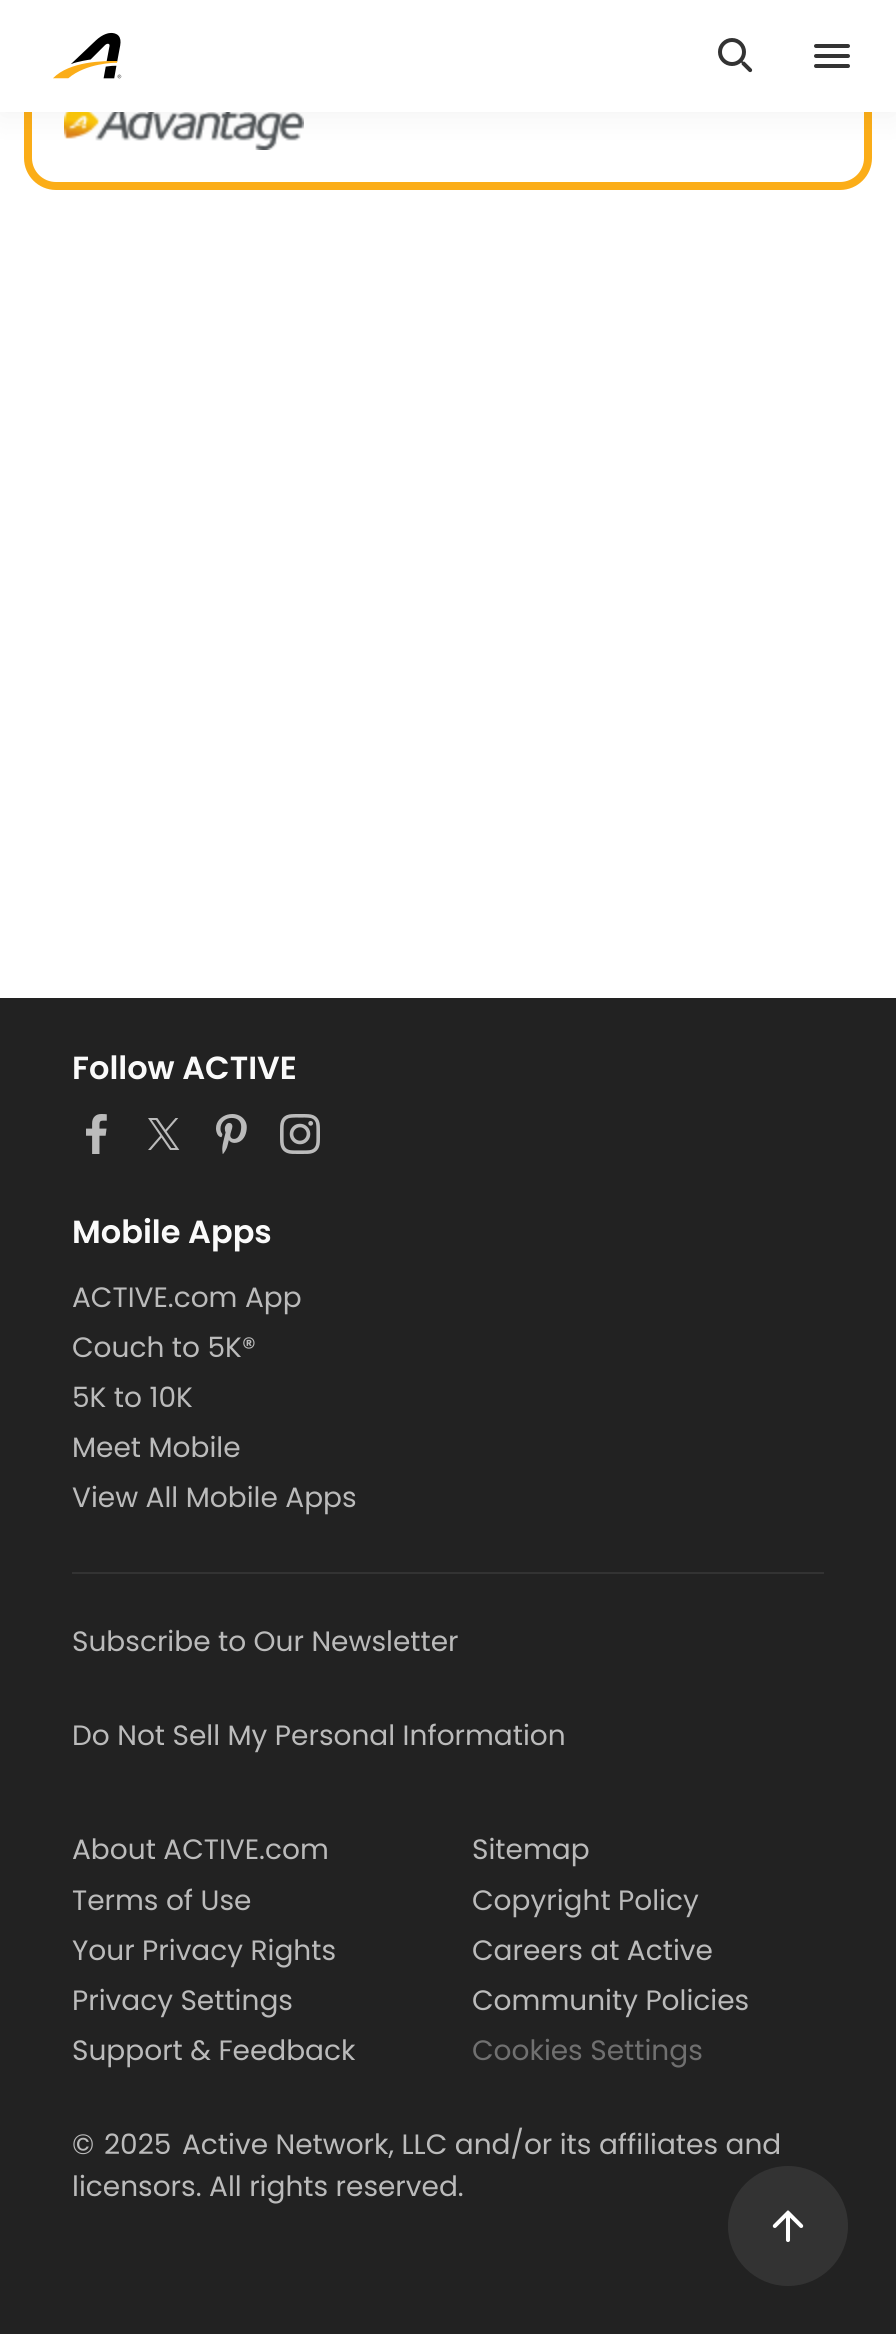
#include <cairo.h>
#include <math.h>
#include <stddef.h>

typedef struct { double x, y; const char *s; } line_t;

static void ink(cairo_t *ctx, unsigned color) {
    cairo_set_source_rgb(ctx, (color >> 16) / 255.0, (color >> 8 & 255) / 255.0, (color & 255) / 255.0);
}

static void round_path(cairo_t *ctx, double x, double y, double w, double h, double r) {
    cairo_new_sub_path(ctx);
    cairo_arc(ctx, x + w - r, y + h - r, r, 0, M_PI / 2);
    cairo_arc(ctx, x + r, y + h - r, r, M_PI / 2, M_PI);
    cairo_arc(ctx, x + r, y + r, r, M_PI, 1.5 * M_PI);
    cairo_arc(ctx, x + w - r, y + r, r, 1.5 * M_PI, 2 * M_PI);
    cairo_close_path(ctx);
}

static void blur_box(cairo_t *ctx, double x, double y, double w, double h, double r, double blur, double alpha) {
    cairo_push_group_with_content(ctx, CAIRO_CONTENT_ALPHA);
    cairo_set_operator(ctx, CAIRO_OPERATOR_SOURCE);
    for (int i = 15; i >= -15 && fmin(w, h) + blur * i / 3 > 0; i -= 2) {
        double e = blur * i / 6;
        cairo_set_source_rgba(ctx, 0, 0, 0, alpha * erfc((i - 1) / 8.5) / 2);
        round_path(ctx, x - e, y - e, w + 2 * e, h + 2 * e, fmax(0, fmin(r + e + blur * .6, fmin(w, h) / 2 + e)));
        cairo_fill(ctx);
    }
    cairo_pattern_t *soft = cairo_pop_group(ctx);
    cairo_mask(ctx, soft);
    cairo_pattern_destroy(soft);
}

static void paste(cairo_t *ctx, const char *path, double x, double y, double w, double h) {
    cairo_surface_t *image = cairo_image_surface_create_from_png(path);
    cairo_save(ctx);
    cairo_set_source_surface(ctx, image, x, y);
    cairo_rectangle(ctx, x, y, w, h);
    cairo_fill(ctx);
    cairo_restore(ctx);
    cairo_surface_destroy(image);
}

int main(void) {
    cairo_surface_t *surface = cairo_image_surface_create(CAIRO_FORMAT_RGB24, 896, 2334);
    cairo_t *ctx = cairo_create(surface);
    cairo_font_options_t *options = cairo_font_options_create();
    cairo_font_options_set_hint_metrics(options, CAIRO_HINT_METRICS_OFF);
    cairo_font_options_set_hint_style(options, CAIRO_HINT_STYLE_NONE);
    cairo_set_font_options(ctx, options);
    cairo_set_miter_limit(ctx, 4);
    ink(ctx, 0xFFFFFF);
    cairo_paint(ctx);
    round_path(ctx, 28, -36, 840, 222, 28);
    ink(ctx, 0xFBAD18);
    cairo_set_line_width(ctx, 8);
    cairo_stroke(ctx);
    paste(ctx, "media/1.png", 64, 112, 240, 38);
    ink(ctx, 0x000000);
    blur_box(ctx, 0, 4, 896, 112, 0, 16, 0.05);
    ink(ctx, 0xFFFFFF);
    cairo_rectangle(ctx, 0, 0, 896, 112);
    cairo_fill(ctx);
    paste(ctx, "media/2.png", 53, 32, 69, 47);
    paste(ctx, "media/3.png", 718, 38, 35, 35);
    paste(ctx, "media/4.png", 814, 44, 36, 24);
    ink(ctx, 0x222222);
    cairo_rectangle(ctx, 0, 998, 896, 1336);
    cairo_fill(ctx);
    cairo_select_font_face(ctx, "Poppins SemiBold", CAIRO_FONT_SLANT_NORMAL, CAIRO_FONT_WEIGHT_NORMAL);
    cairo_set_font_size(ctx, 32);
    ink(ctx, 0xFAFAFA);
    cairo_move_to(ctx, 72, 1079);
    cairo_show_text(ctx, "Follow ACTIVE");
    paste(ctx, "media/5.png", 86, 1114, 21, 40);
    paste(ctx, "media/6.png", 148, 1118, 32, 32);
    paste(ctx, "media/7.png", 216, 1114, 31, 40);
    paste(ctx, "media/8.png", 280, 1114, 40, 40);
    cairo_move_to(ctx, 72, 1243);
    cairo_show_text(ctx, "Mobile Apps");
    ink(ctx, 0x333333);
    cairo_rectangle(ctx, 72, 1572, 752, 2);
    cairo_fill(ctx);
    cairo_select_font_face(ctx, "Poppins", CAIRO_FONT_SLANT_NORMAL, CAIRO_FONT_WEIGHT_NORMAL);
    cairo_set_font_size(ctx, 28);
    ink(ctx, 0xBBBBBB);
    {
        static const line_t items[] = {
            {72, 1307, "ACTIVE.com App"},
            {72, 1357, "Couch to 5K®"},
            {72, 1407, "5K to 10K"},
            {72, 1457, "Meet Mobile"},
            {72, 1507, "View All Mobile Apps"},
            {72, 1651, "Subscribe to Our Newsletter"},
            {72, 1745, "Do Not Sell My Personal Information"},
            {72, 1859, "About ACTIVE.com"},
            {72, 1910, "Terms of Use"},
            {72, 1960, "Your Privacy Rights"},
            {72, 2010, "Privacy Settings"},
            {72, 2060, "Support & Feedback"},
            {472, 1859, "Sitemap"},
            {472, 1910, "Copyright Policy"},
            {472, 1960, "Careers at Active"},
            {472, 2010, "Community Policies"},
        };
        for (size_t i = 0; i < sizeof items / sizeof *items; i++) {
            cairo_move_to(ctx, items[i].x, items[i].y);
            cairo_show_text(ctx, items[i].s);
        }
    }
    ink(ctx, 0x707070);
    cairo_move_to(ctx, 472, 2060);
    cairo_show_text(ctx, "Cookies Settings");
    ink(ctx, 0xBBBBBB);
    {
        static const line_t items[] = {
            {72, 2154, "©"},
            {104, 2154, "2025"},
            {182, 2154, "Active Network, LLC and/or its affiliates and"},
            {72, 2196, "licensors. All rights reserved."},
        };
        for (size_t i = 0; i < sizeof items / sizeof *items; i++) {
            cairo_move_to(ctx, items[i].x, items[i].y);
            cairo_show_text(ctx, items[i].s);
        }
    }
    ink(ctx, 0x333333);
    cairo_new_path(ctx);
    cairo_arc(ctx, 788, 2226, 60, 0, 2 * M_PI);
    cairo_fill(ctx);
    paste(ctx, "media/9.png", 772, 2210, 32, 32);
    cairo_surface_write_to_png(surface, "image.png");
    cairo_font_options_destroy(options);
    cairo_destroy(ctx);
    cairo_surface_destroy(surface);
    return 0;
}
